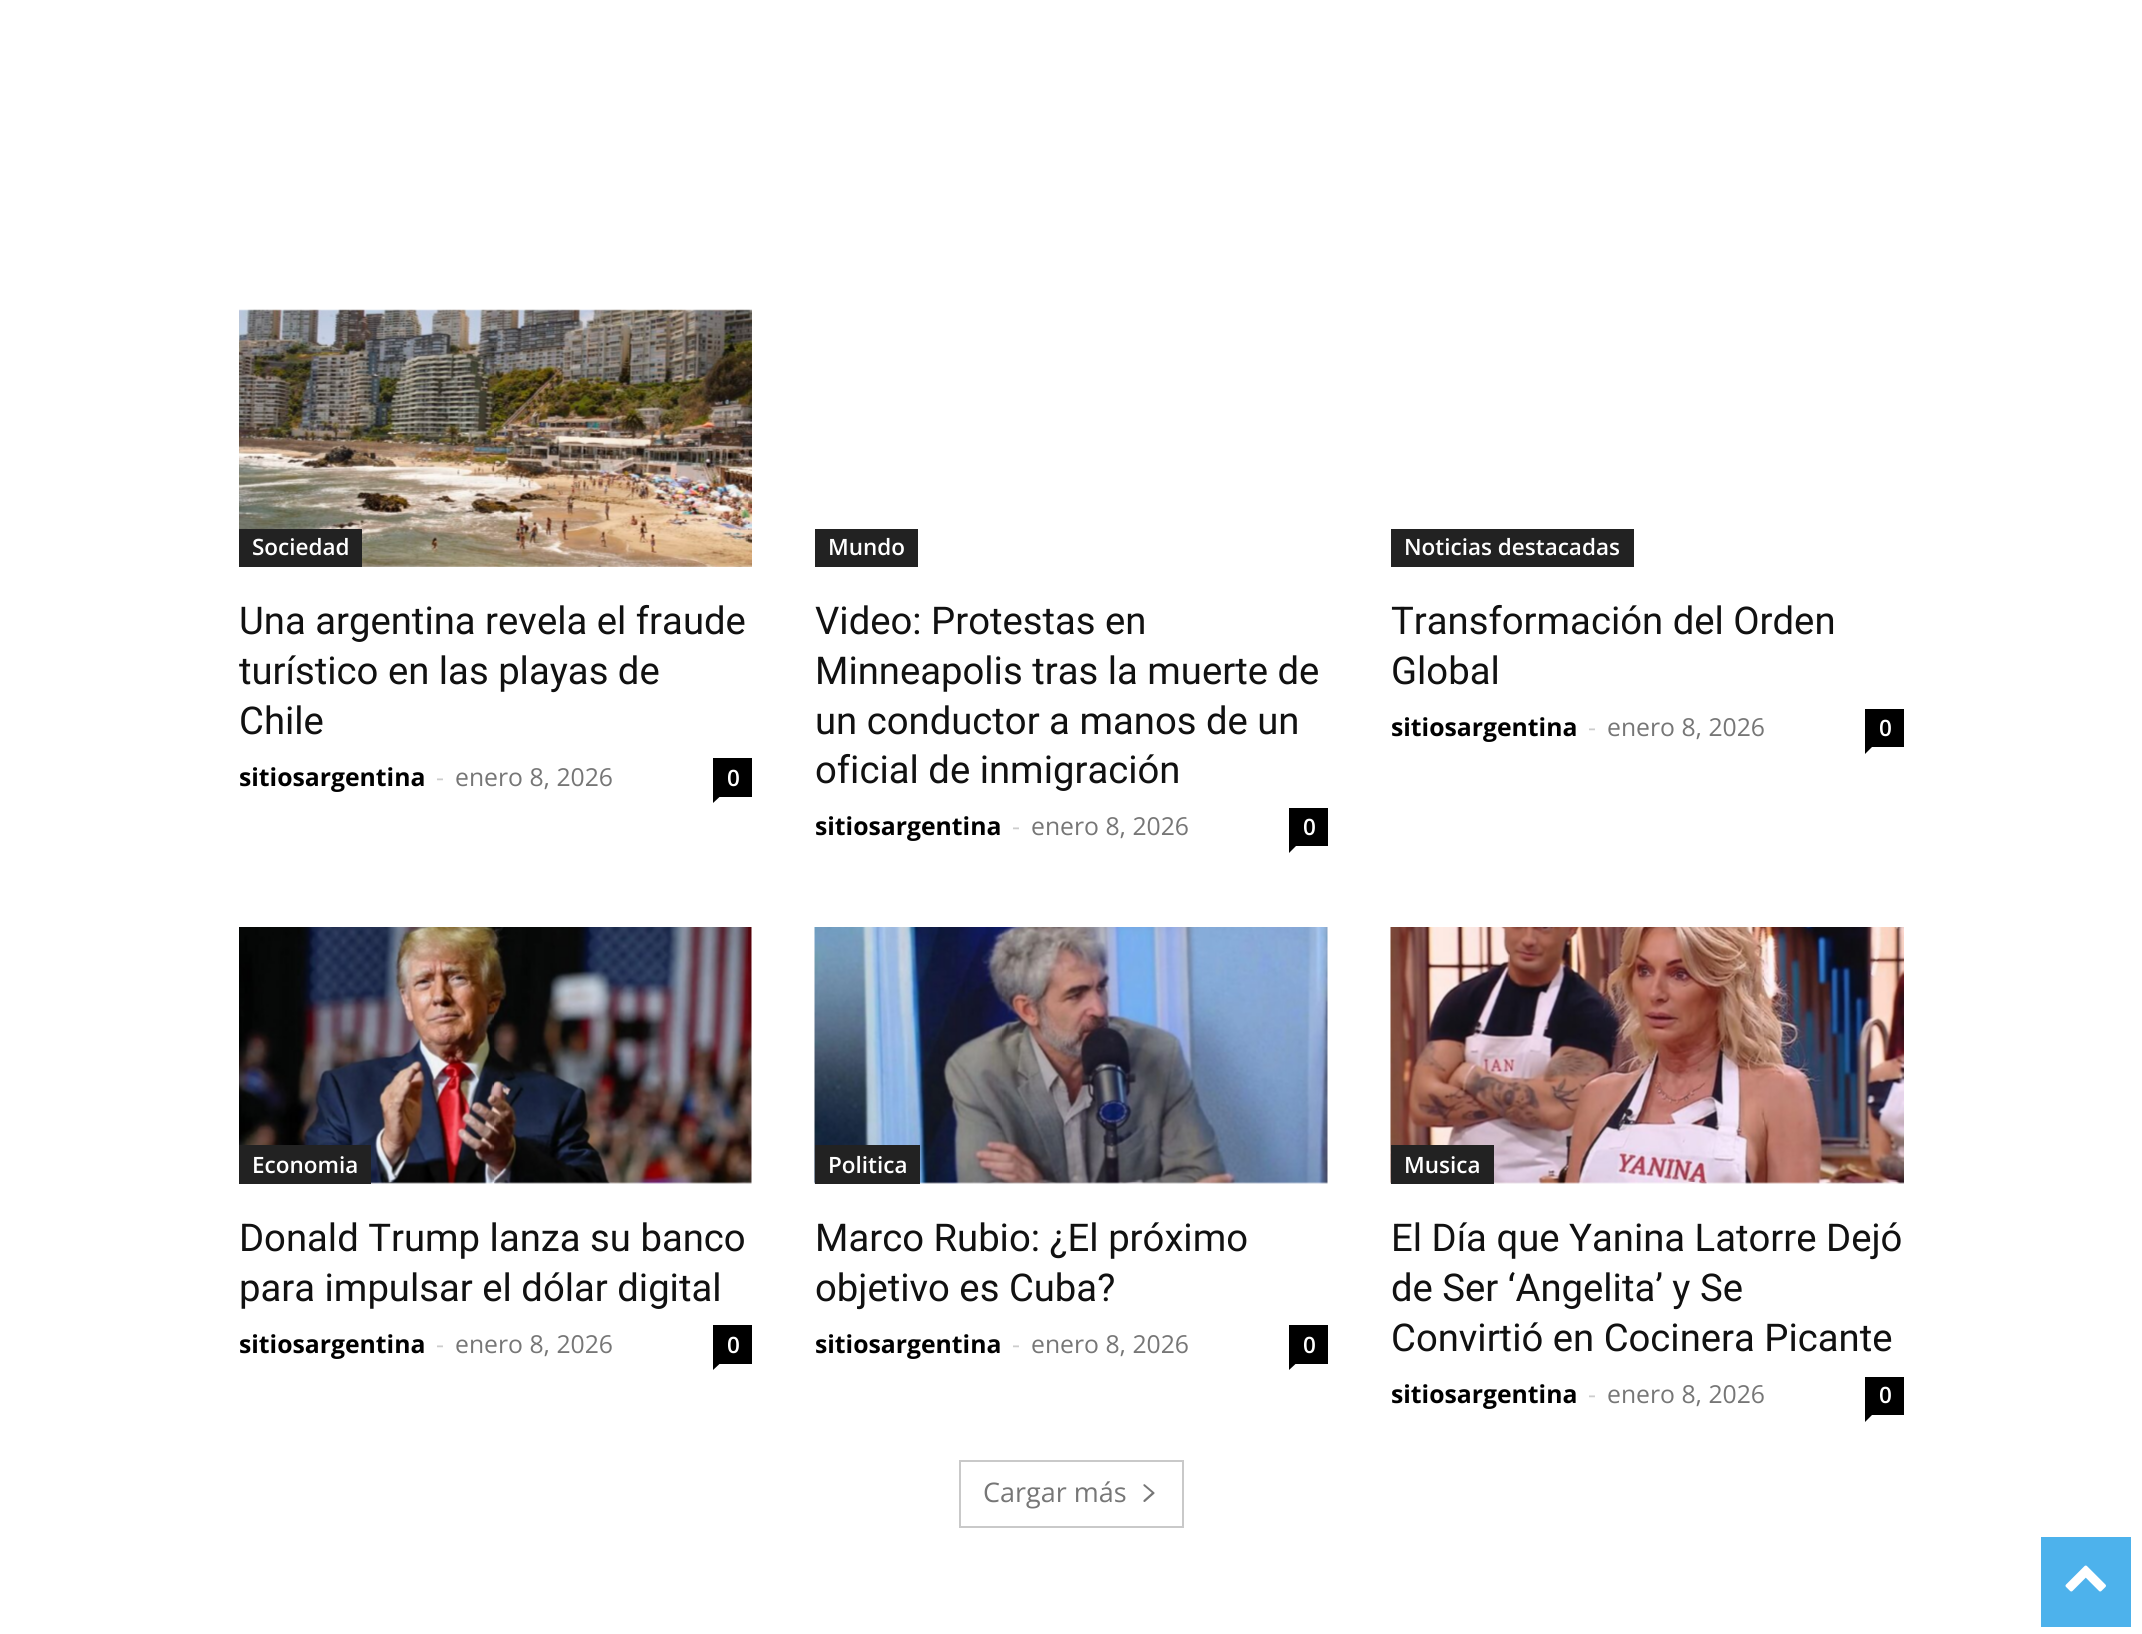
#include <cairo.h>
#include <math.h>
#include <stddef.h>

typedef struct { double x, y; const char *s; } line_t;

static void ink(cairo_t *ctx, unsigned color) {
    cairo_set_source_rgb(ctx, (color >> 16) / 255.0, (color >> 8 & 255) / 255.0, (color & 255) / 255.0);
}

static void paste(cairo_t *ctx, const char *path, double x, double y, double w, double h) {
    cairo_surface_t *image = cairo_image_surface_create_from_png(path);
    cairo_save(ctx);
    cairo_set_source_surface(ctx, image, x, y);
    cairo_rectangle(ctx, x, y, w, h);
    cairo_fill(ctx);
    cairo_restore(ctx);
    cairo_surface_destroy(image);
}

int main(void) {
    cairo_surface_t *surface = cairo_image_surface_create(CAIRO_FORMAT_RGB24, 2142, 1634);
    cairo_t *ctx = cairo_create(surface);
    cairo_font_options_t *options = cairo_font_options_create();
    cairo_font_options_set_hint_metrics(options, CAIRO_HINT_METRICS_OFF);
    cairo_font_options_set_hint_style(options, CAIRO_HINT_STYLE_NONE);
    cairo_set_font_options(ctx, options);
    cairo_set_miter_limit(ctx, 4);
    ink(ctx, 0xFFFFFF);
    cairo_paint(ctx);
    paste(ctx, "media/1.png", 239, 309, 513, 258);
    ink(ctx, 0x222222);
    cairo_rectangle(ctx, 239, 529, 123, 38);
    cairo_fill(ctx);
    cairo_select_font_face(ctx, "Open Sans SemiBold", CAIRO_FONT_SLANT_NORMAL, CAIRO_FONT_WEIGHT_NORMAL);
    cairo_set_font_size(ctx, 22.5);
    ink(ctx, 0xFFFFFF);
    cairo_move_to(ctx, 252, 555);
    cairo_show_text(ctx, "Sociedad");
    cairo_select_font_face(ctx, "Roboto", CAIRO_FONT_SLANT_NORMAL, CAIRO_FONT_WEIGHT_NORMAL);
    cairo_set_font_size(ctx, 38.25);
    ink(ctx, 0x111111);
    {
        static const line_t items[] = {
            {239, 634, "Una argentina revela el fraude"},
            {239, 684, "turístico en las playas de"},
            {239, 734, "Chile"},
        };
        for (size_t i = 0; i < sizeof items / sizeof *items; i++) {
            cairo_move_to(ctx, items[i].x, items[i].y);
            cairo_show_text(ctx, items[i].s);
        }
    }
    cairo_select_font_face(ctx, "Open Sans", CAIRO_FONT_SLANT_NORMAL, CAIRO_FONT_WEIGHT_BOLD);
    cairo_set_font_size(ctx, 24.75);
    ink(ctx, 0x000000);
    cairo_move_to(ctx, 239, 786);
    cairo_show_text(ctx, "sitiosargentina");
    cairo_select_font_face(ctx, "Open Sans", CAIRO_FONT_SLANT_NORMAL, CAIRO_FONT_WEIGHT_NORMAL);
    ink(ctx, 0xCCCCCC);
    cairo_move_to(ctx, 436, 786);
    cairo_show_text(ctx, "-");
    ink(ctx, 0x767676);
    cairo_move_to(ctx, 455, 786);
    cairo_show_text(ctx, "enero 8, 2026");
    ink(ctx, 0x000000);
    cairo_rectangle(ctx, 713, 758, 39, 39);
    cairo_fill(ctx);
    cairo_select_font_face(ctx, "Open Sans SemiBold", CAIRO_FONT_SLANT_NORMAL, CAIRO_FONT_WEIGHT_NORMAL);
    cairo_set_font_size(ctx, 22.5);
    ink(ctx, 0xFFFFFF);
    cairo_move_to(ctx, 727, 786);
    cairo_show_text(ctx, "0");
    ink(ctx, 0x000000);
    cairo_new_path(ctx);
    cairo_move_to(ctx, 713, 796.5);
    cairo_line_to(ctx, 720, 796.5);
    cairo_line_to(ctx, 713, 803);
    cairo_close_path(ctx);
    cairo_fill(ctx);
    ink(ctx, 0x222222);
    cairo_rectangle(ctx, 815, 529, 103, 38);
    cairo_fill(ctx);
    ink(ctx, 0xFFFFFF);
    cairo_move_to(ctx, 828, 555);
    cairo_show_text(ctx, "Mundo");
    cairo_select_font_face(ctx, "Roboto", CAIRO_FONT_SLANT_NORMAL, CAIRO_FONT_WEIGHT_NORMAL);
    cairo_set_font_size(ctx, 38.25);
    ink(ctx, 0x111111);
    {
        static const line_t items[] = {
            {815, 634, "Video: Protestas en"},
            {815, 684, "Minneapolis tras la muerte de"},
            {815, 734, "un conductor a manos de un"},
            {815, 783, "oficial de inmigración"},
        };
        for (size_t i = 0; i < sizeof items / sizeof *items; i++) {
            cairo_move_to(ctx, items[i].x, items[i].y);
            cairo_show_text(ctx, items[i].s);
        }
    }
    cairo_select_font_face(ctx, "Open Sans", CAIRO_FONT_SLANT_NORMAL, CAIRO_FONT_WEIGHT_BOLD);
    cairo_set_font_size(ctx, 24.75);
    ink(ctx, 0x000000);
    cairo_move_to(ctx, 815, 835);
    cairo_show_text(ctx, "sitiosargentina");
    cairo_select_font_face(ctx, "Open Sans", CAIRO_FONT_SLANT_NORMAL, CAIRO_FONT_WEIGHT_NORMAL);
    ink(ctx, 0xCCCCCC);
    cairo_move_to(ctx, 1012, 835);
    cairo_show_text(ctx, "-");
    ink(ctx, 0x767676);
    cairo_move_to(ctx, 1031, 835);
    cairo_show_text(ctx, "enero 8, 2026");
    ink(ctx, 0x000000);
    cairo_rectangle(ctx, 1289, 808, 39, 38);
    cairo_fill(ctx);
    cairo_select_font_face(ctx, "Open Sans SemiBold", CAIRO_FONT_SLANT_NORMAL, CAIRO_FONT_WEIGHT_NORMAL);
    cairo_set_font_size(ctx, 22.5);
    ink(ctx, 0xFFFFFF);
    cairo_move_to(ctx, 1303, 835);
    cairo_show_text(ctx, "0");
    ink(ctx, 0x000000);
    cairo_new_path(ctx);
    cairo_move_to(ctx, 1289, 846);
    cairo_line_to(ctx, 1296, 846);
    cairo_line_to(ctx, 1289, 853);
    cairo_close_path(ctx);
    cairo_fill(ctx);
    ink(ctx, 0x222222);
    cairo_rectangle(ctx, 1391, 529, 243, 38);
    cairo_fill(ctx);
    ink(ctx, 0xFFFFFF);
    cairo_move_to(ctx, 1404, 555);
    cairo_show_text(ctx, "Noticias destacadas");
    cairo_select_font_face(ctx, "Roboto", CAIRO_FONT_SLANT_NORMAL, CAIRO_FONT_WEIGHT_NORMAL);
    cairo_set_font_size(ctx, 38.25);
    ink(ctx, 0x111111);
    cairo_move_to(ctx, 1391, 634);
    cairo_show_text(ctx, "Transformación del Orden");
    cairo_move_to(ctx, 1391, 684);
    cairo_show_text(ctx, "Global");
    cairo_select_font_face(ctx, "Open Sans", CAIRO_FONT_SLANT_NORMAL, CAIRO_FONT_WEIGHT_BOLD);
    cairo_set_font_size(ctx, 24.75);
    ink(ctx, 0x000000);
    cairo_move_to(ctx, 1391, 736);
    cairo_show_text(ctx, "sitiosargentina");
    cairo_select_font_face(ctx, "Open Sans", CAIRO_FONT_SLANT_NORMAL, CAIRO_FONT_WEIGHT_NORMAL);
    ink(ctx, 0xCCCCCC);
    cairo_move_to(ctx, 1588, 736);
    cairo_show_text(ctx, "-");
    ink(ctx, 0x767676);
    cairo_move_to(ctx, 1607, 736);
    cairo_show_text(ctx, "enero 8, 2026");
    ink(ctx, 0x000000);
    cairo_rectangle(ctx, 1865, 709, 39, 38);
    cairo_fill(ctx);
    cairo_select_font_face(ctx, "Open Sans SemiBold", CAIRO_FONT_SLANT_NORMAL, CAIRO_FONT_WEIGHT_NORMAL);
    cairo_set_font_size(ctx, 22.5);
    ink(ctx, 0xFFFFFF);
    cairo_move_to(ctx, 1879, 736);
    cairo_show_text(ctx, "0");
    ink(ctx, 0x000000);
    cairo_new_path(ctx);
    cairo_move_to(ctx, 1865, 747);
    cairo_line_to(ctx, 1872, 747);
    cairo_line_to(ctx, 1865, 754);
    cairo_close_path(ctx);
    cairo_fill(ctx);
    paste(ctx, "media/2.png", 239, 927, 513, 257);
    ink(ctx, 0x222222);
    cairo_rectangle(ctx, 239, 1145, 132, 39);
    cairo_fill(ctx);
    ink(ctx, 0xFFFFFF);
    cairo_move_to(ctx, 252, 1173);
    cairo_show_text(ctx, "Economia");
    cairo_select_font_face(ctx, "Roboto", CAIRO_FONT_SLANT_NORMAL, CAIRO_FONT_WEIGHT_NORMAL);
    cairo_set_font_size(ctx, 38.25);
    ink(ctx, 0x111111);
    cairo_move_to(ctx, 239, 1251);
    cairo_show_text(ctx, "Donald Trump lanza su banco");
    cairo_move_to(ctx, 239, 1301);
    cairo_show_text(ctx, "para impulsar el dólar digital");
    cairo_select_font_face(ctx, "Open Sans", CAIRO_FONT_SLANT_NORMAL, CAIRO_FONT_WEIGHT_BOLD);
    cairo_set_font_size(ctx, 24.75);
    ink(ctx, 0x000000);
    cairo_move_to(ctx, 239, 1353);
    cairo_show_text(ctx, "sitiosargentina");
    cairo_select_font_face(ctx, "Open Sans", CAIRO_FONT_SLANT_NORMAL, CAIRO_FONT_WEIGHT_NORMAL);
    ink(ctx, 0xCCCCCC);
    cairo_move_to(ctx, 436, 1353);
    cairo_show_text(ctx, "-");
    ink(ctx, 0x767676);
    cairo_move_to(ctx, 455, 1353);
    cairo_show_text(ctx, "enero 8, 2026");
    ink(ctx, 0x000000);
    cairo_rectangle(ctx, 713, 1325, 39, 39);
    cairo_fill(ctx);
    cairo_select_font_face(ctx, "Open Sans SemiBold", CAIRO_FONT_SLANT_NORMAL, CAIRO_FONT_WEIGHT_NORMAL);
    cairo_set_font_size(ctx, 22.5);
    ink(ctx, 0xFFFFFF);
    cairo_move_to(ctx, 727, 1353);
    cairo_show_text(ctx, "0");
    ink(ctx, 0x000000);
    cairo_new_path(ctx);
    cairo_move_to(ctx, 713, 1363.5);
    cairo_line_to(ctx, 720, 1363.5);
    cairo_line_to(ctx, 713, 1370);
    cairo_close_path(ctx);
    cairo_fill(ctx);
    paste(ctx, "media/3.png", 814, 927, 514, 257);
    ink(ctx, 0x222222);
    cairo_rectangle(ctx, 815, 1145, 105, 39);
    cairo_fill(ctx);
    ink(ctx, 0xFFFFFF);
    cairo_move_to(ctx, 828, 1173);
    cairo_show_text(ctx, "Politica");
    cairo_select_font_face(ctx, "Roboto", CAIRO_FONT_SLANT_NORMAL, CAIRO_FONT_WEIGHT_NORMAL);
    cairo_set_font_size(ctx, 38.25);
    ink(ctx, 0x111111);
    cairo_move_to(ctx, 815, 1251);
    cairo_show_text(ctx, "Marco Rubio: ¿El próximo");
    cairo_move_to(ctx, 815, 1301);
    cairo_show_text(ctx, "objetivo es Cuba?");
    cairo_select_font_face(ctx, "Open Sans", CAIRO_FONT_SLANT_NORMAL, CAIRO_FONT_WEIGHT_BOLD);
    cairo_set_font_size(ctx, 24.75);
    ink(ctx, 0x000000);
    cairo_move_to(ctx, 815, 1353);
    cairo_show_text(ctx, "sitiosargentina");
    cairo_select_font_face(ctx, "Open Sans", CAIRO_FONT_SLANT_NORMAL, CAIRO_FONT_WEIGHT_NORMAL);
    ink(ctx, 0xCCCCCC);
    cairo_move_to(ctx, 1012, 1353);
    cairo_show_text(ctx, "-");
    ink(ctx, 0x767676);
    cairo_move_to(ctx, 1031, 1353);
    cairo_show_text(ctx, "enero 8, 2026");
    ink(ctx, 0x000000);
    cairo_rectangle(ctx, 1289, 1325, 39, 39);
    cairo_fill(ctx);
    cairo_select_font_face(ctx, "Open Sans SemiBold", CAIRO_FONT_SLANT_NORMAL, CAIRO_FONT_WEIGHT_NORMAL);
    cairo_set_font_size(ctx, 22.5);
    ink(ctx, 0xFFFFFF);
    cairo_move_to(ctx, 1303, 1353);
    cairo_show_text(ctx, "0");
    ink(ctx, 0x000000);
    cairo_new_path(ctx);
    cairo_move_to(ctx, 1289, 1363.5);
    cairo_line_to(ctx, 1296, 1363.5);
    cairo_line_to(ctx, 1289, 1370);
    cairo_close_path(ctx);
    cairo_fill(ctx);
    paste(ctx, "media/4.png", 1390, 927, 514, 257);
    ink(ctx, 0x222222);
    cairo_rectangle(ctx, 1391, 1145, 103, 39);
    cairo_fill(ctx);
    ink(ctx, 0xFFFFFF);
    cairo_move_to(ctx, 1404, 1173);
    cairo_show_text(ctx, "Musica");
    cairo_select_font_face(ctx, "Roboto", CAIRO_FONT_SLANT_NORMAL, CAIRO_FONT_WEIGHT_NORMAL);
    cairo_set_font_size(ctx, 38.25);
    ink(ctx, 0x111111);
    {
        static const line_t items[] = {
            {1391, 1251, "El Día que Yanina Latorre Dejó"},
            {1391, 1301, "de Ser ‘Angelita’ y Se"},
            {1391, 1351, "Convirtió en Cocinera Picante"},
        };
        for (size_t i = 0; i < sizeof items / sizeof *items; i++) {
            cairo_move_to(ctx, items[i].x, items[i].y);
            cairo_show_text(ctx, items[i].s);
        }
    }
    cairo_select_font_face(ctx, "Open Sans", CAIRO_FONT_SLANT_NORMAL, CAIRO_FONT_WEIGHT_BOLD);
    cairo_set_font_size(ctx, 24.75);
    ink(ctx, 0x000000);
    cairo_move_to(ctx, 1391, 1403);
    cairo_show_text(ctx, "sitiosargentina");
    cairo_select_font_face(ctx, "Open Sans", CAIRO_FONT_SLANT_NORMAL, CAIRO_FONT_WEIGHT_NORMAL);
    ink(ctx, 0xCCCCCC);
    cairo_move_to(ctx, 1588, 1403);
    cairo_show_text(ctx, "-");
    ink(ctx, 0x767676);
    cairo_move_to(ctx, 1607, 1403);
    cairo_show_text(ctx, "enero 8, 2026");
    ink(ctx, 0x000000);
    cairo_rectangle(ctx, 1865, 1377, 39, 38);
    cairo_fill(ctx);
    cairo_select_font_face(ctx, "Open Sans SemiBold", CAIRO_FONT_SLANT_NORMAL, CAIRO_FONT_WEIGHT_NORMAL);
    cairo_set_font_size(ctx, 22.5);
    ink(ctx, 0xFFFFFF);
    cairo_move_to(ctx, 1879, 1403);
    cairo_show_text(ctx, "0");
    ink(ctx, 0x000000);
    cairo_new_path(ctx);
    cairo_move_to(ctx, 1865, 1415);
    cairo_line_to(ctx, 1872, 1415);
    cairo_line_to(ctx, 1865, 1422);
    cairo_close_path(ctx);
    cairo_fill(ctx);
    cairo_rectangle(ctx, 960, 1461, 223, 66);
    ink(ctx, 0xC9C9C9);
    cairo_stroke(ctx);
    cairo_select_font_face(ctx, "Open Sans", CAIRO_FONT_SLANT_NORMAL, CAIRO_FONT_WEIGHT_NORMAL);
    cairo_set_font_size(ctx, 27);
    ink(ctx, 0x767676);
    cairo_move_to(ctx, 983, 1502);
    cairo_show_text(ctx, "Cargar más");
    paste(ctx, "media/5.png", 1143, 1484, 12, 18);
    ink(ctx, 0x4DB2EC);
    cairo_rectangle(ctx, 2041, 1537, 90, 90);
    cairo_fill(ctx);
    paste(ctx, "media/6.png", 2065, 1565, 41, 27);
    cairo_surface_write_to_png(surface, "image.png");
    cairo_font_options_destroy(options);
    cairo_destroy(ctx);
    cairo_surface_destroy(surface);
    return 0;
}
